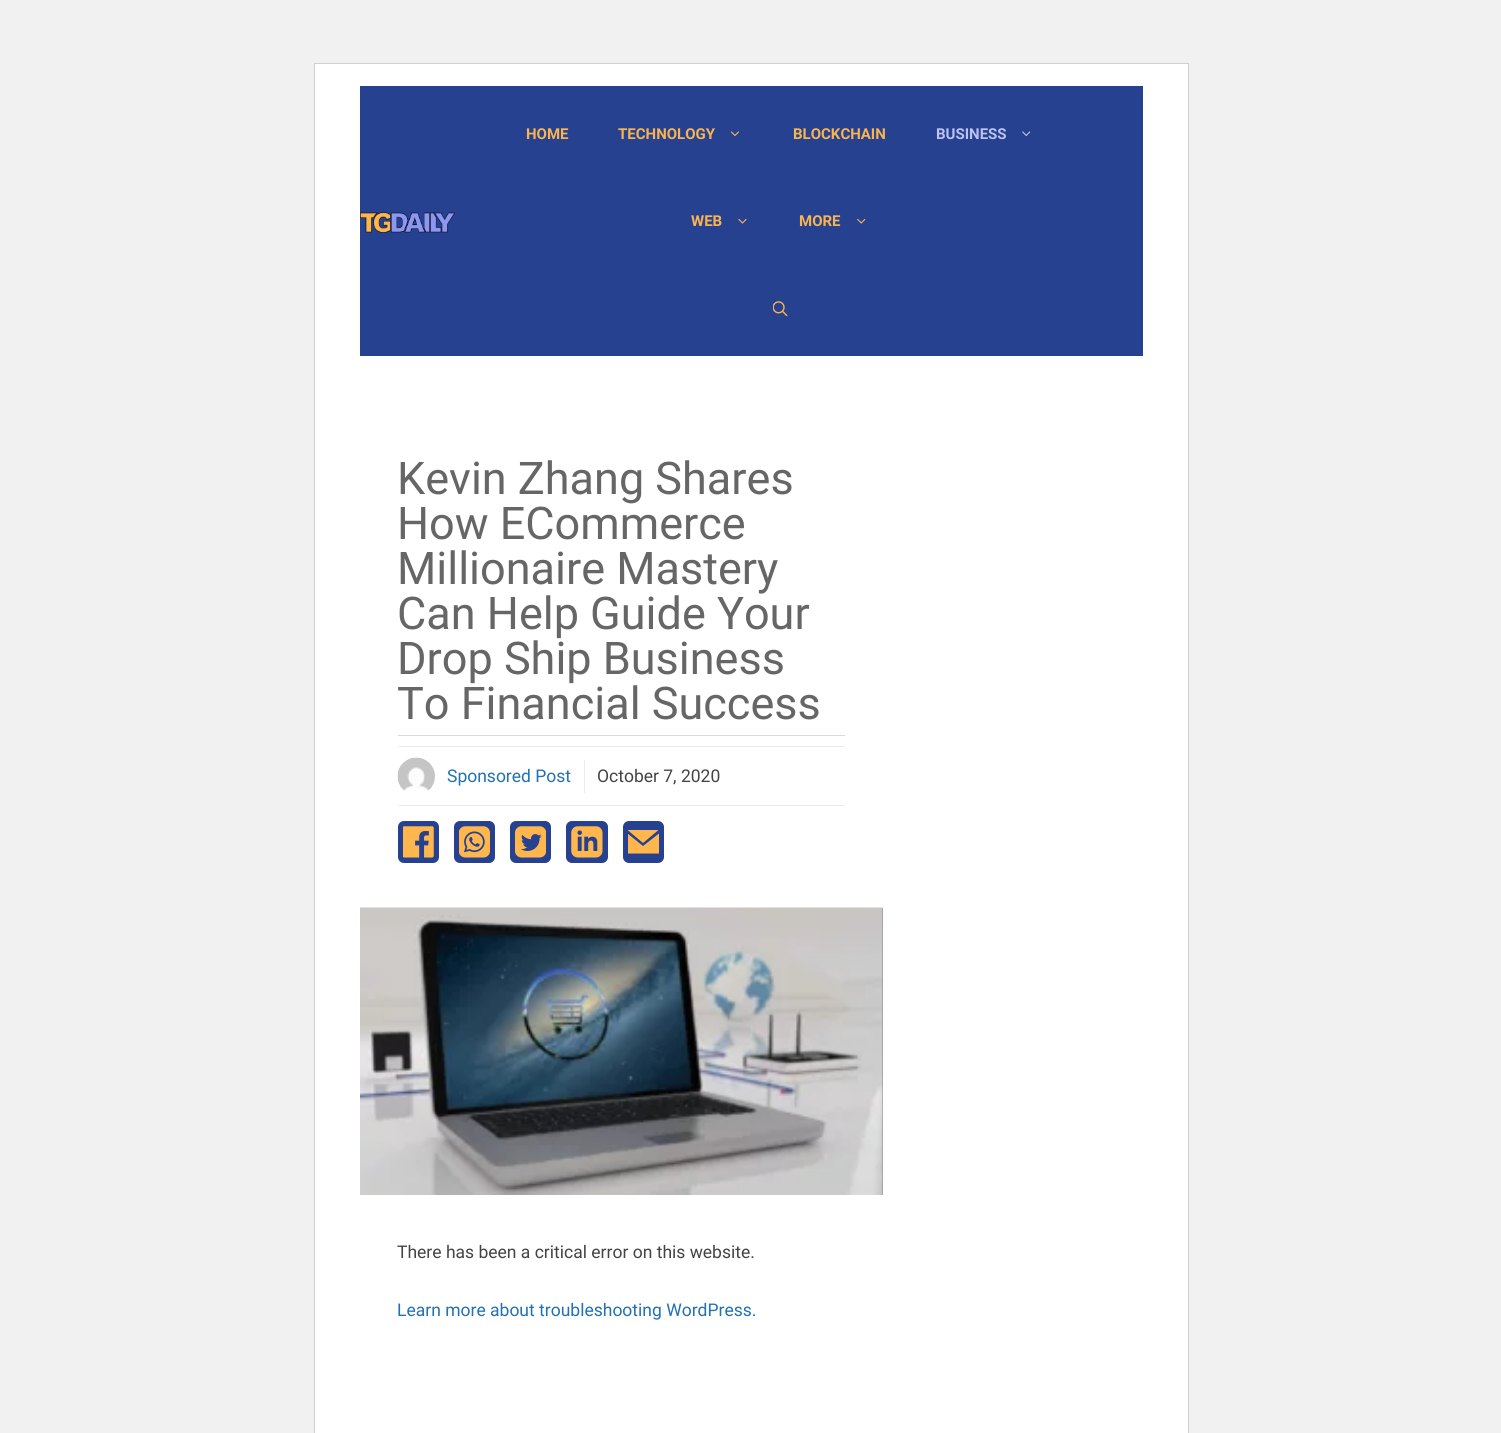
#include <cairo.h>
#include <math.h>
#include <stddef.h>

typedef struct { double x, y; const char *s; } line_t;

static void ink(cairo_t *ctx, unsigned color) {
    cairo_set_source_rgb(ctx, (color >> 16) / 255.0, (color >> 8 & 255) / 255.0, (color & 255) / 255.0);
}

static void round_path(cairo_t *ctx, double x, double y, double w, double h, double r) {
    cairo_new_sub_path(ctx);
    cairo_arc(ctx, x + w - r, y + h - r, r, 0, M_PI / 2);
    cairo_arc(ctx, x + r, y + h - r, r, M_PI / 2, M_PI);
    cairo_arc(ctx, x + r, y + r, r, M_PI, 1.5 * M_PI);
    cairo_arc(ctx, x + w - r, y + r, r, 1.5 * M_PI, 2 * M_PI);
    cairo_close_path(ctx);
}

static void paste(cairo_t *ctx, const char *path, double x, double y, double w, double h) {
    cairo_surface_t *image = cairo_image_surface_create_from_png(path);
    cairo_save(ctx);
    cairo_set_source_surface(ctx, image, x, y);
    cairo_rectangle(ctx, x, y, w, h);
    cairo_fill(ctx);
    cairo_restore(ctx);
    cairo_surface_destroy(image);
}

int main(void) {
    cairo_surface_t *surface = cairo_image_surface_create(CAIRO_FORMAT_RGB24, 1501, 1433);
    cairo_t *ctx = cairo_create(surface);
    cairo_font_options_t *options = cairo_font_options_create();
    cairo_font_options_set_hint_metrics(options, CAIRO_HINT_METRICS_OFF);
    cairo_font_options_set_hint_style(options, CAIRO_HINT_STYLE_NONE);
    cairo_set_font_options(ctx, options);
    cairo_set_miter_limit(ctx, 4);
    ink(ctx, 0xF1F1F1);
    cairo_paint(ctx);
    ink(ctx, 0xFFFFFF);
    cairo_rectangle(ctx, 314.5, 63.5, 874, 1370);
    cairo_fill_preserve(ctx);
    ink(ctx, 0xCCD0D4);
    cairo_set_line_width(ctx, 1);
    cairo_stroke(ctx);
    ink(ctx, 0x26418F);
    cairo_rectangle(ctx, 360, 86, 783, 270);
    cairo_fill(ctx);
    paste(ctx, "media/1.png", 360, 212, 95, 21);
    cairo_select_font_face(ctx, "Roboto", CAIRO_FONT_SLANT_NORMAL, CAIRO_FONT_WEIGHT_BOLD);
    cairo_set_font_size(ctx, 15);
    ink(ctx, 0xF9B44D);
    cairo_move_to(ctx, 526, 139);
    cairo_show_text(ctx, "HOME");
    cairo_move_to(ctx, 618, 139);
    cairo_show_text(ctx, "TECHNOLOGY");
    paste(ctx, "media/2.png", 730, 131, 9, 6);
    cairo_move_to(ctx, 793, 139);
    cairo_show_text(ctx, "BLOCKCHAIN");
    ink(ctx, 0xBCC2F1);
    cairo_move_to(ctx, 936, 139);
    cairo_show_text(ctx, "BUSINESS");
    paste(ctx, "media/3.png", 1022, 131, 9, 6);
    ink(ctx, 0xF9B44D);
    cairo_move_to(ctx, 691, 226);
    cairo_show_text(ctx, "WEB");
    paste(ctx, "media/4.png", 738, 218, 9, 6);
    cairo_move_to(ctx, 799, 226);
    cairo_show_text(ctx, "MORE");
    paste(ctx, "media/5.png", 857, 218, 9, 6);
    paste(ctx, "media/6.png", 773, 301, 15, 15);
    ink(ctx, 0xDADADA);
    cairo_rectangle(ctx, 398, 735, 447, 1);
    cairo_fill(ctx);
    cairo_select_font_face(ctx, "Roboto", CAIRO_FONT_SLANT_NORMAL, CAIRO_FONT_WEIGHT_NORMAL);
    cairo_set_font_size(ctx, 45);
    ink(ctx, 0x666666);
    {
        static const line_t items[] = {
            {397, 494, "Kevin Zhang Shares"},
            {397, 539, "How ECommerce"},
            {397, 584, "Millionaire Mastery"},
            {397, 629, "Can Help Guide Your"},
            {397, 674, "Drop Ship Business"},
            {397, 719, "To Financial Success"},
        };
        for (size_t i = 0; i < sizeof items / sizeof *items; i++) {
            cairo_move_to(ctx, items[i].x, items[i].y);
            cairo_show_text(ctx, items[i].s);
        }
    }
    ink(ctx, 0xE8EDF0);
    cairo_rectangle(ctx, 398, 746, 447, 1);
    cairo_fill(ctx);
    cairo_rectangle(ctx, 398, 805, 447, 1);
    cairo_fill(ctx);
    paste(ctx, "media/7.png", 397, 757, 38, 34);
    cairo_set_font_size(ctx, 17.5);
    ink(ctx, 0x2271B1);
    cairo_move_to(ctx, 447, 782);
    cairo_show_text(ctx, "Sponsored Post");
    ink(ctx, 0xE8EDF0);
    cairo_rectangle(ctx, 584, 760, 1, 33);
    cairo_fill(ctx);
    ink(ctx, 0x444444);
    cairo_move_to(ctx, 597, 782);
    cairo_show_text(ctx, "October 7, 2020");
    ink(ctx, 0x26418F);
    round_path(ctx, 398, 821, 41, 42, 6);
    cairo_fill(ctx);
    paste(ctx, "media/8.png", 403, 826, 31, 32);
    round_path(ctx, 454, 821, 41, 42, 6);
    cairo_fill(ctx);
    paste(ctx, "media/9.png", 459, 826, 31, 32);
    round_path(ctx, 510, 821, 41, 42, 6);
    cairo_fill(ctx);
    paste(ctx, "media/10.png", 515, 826, 31, 32);
    round_path(ctx, 566, 821, 42, 42, 6);
    cairo_fill(ctx);
    paste(ctx, "media/11.png", 571, 826, 32, 32);
    round_path(ctx, 623, 821, 41, 42, 6);
    cairo_fill(ctx);
    cairo_save(ctx);
    cairo_rectangle(ctx, 628, 826, 31, 32);
    cairo_clip(ctx);
    ink(ctx, 0xFFB74D);
    cairo_new_path(ctx);
    cairo_move_to(ctx, 643, 843);
    cairo_line_to(ctx, 627.5, 830);
    cairo_line_to(ctx, 658.5, 830);
    cairo_close_path(ctx);
    cairo_move_to(ctx, 643, 846);
    cairo_line_to(ctx, 627.5, 833.5);
    cairo_line_to(ctx, 627.5, 853.5);
    cairo_line_to(ctx, 659, 853.5);
    cairo_line_to(ctx, 659, 833.5);
    cairo_close_path(ctx);
    cairo_fill(ctx);
    cairo_restore(ctx);
    ink(ctx, 0x7E858B);
    cairo_rectangle(ctx, 882, 908, 1, 287);
    cairo_fill(ctx);
    paste(ctx, "media/12.png", 360, 907, 523, 288);
    ink(ctx, 0x444444);
    cairo_move_to(ctx, 397, 1258);
    cairo_show_text(ctx, "There has been a critical error on this website.");
    ink(ctx, 0x2271B1);
    cairo_move_to(ctx, 397, 1316);
    cairo_show_text(ctx, "Learn more about troubleshooting WordPress.");
    cairo_surface_write_to_png(surface, "image.png");
    cairo_font_options_destroy(options);
    cairo_destroy(ctx);
    cairo_surface_destroy(surface);
    return 0;
}
